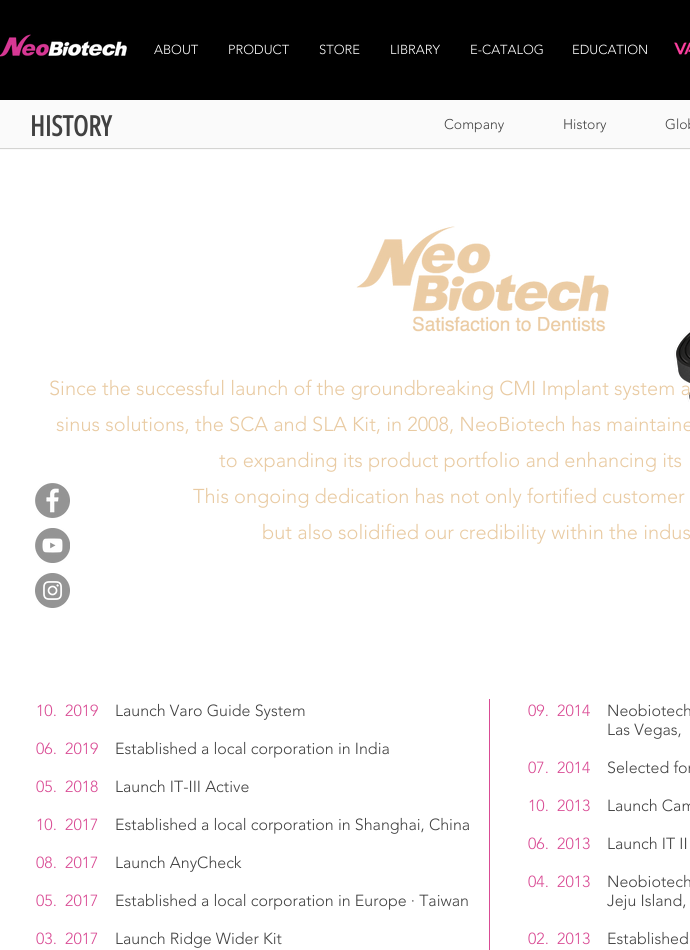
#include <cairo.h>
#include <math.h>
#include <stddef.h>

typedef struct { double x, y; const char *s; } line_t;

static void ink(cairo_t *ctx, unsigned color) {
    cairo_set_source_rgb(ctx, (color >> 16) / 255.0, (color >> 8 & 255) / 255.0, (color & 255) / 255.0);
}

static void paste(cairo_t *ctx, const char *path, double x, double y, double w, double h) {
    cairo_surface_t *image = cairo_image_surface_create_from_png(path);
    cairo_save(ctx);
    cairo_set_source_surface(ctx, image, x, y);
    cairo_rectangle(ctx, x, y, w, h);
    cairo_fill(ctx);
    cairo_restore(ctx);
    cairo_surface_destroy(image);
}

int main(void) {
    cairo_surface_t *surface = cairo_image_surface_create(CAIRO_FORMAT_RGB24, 690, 950);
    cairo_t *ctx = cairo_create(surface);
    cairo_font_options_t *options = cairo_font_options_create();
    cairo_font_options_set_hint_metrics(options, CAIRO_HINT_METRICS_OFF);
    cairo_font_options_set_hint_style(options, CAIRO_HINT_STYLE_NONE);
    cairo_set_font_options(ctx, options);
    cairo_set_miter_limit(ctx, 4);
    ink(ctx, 0xFFFFFF);
    cairo_paint(ctx);
    ink(ctx, 0x000000);
    cairo_rectangle(ctx, 0, 0, 690, 100);
    cairo_fill(ctx);
    paste(ctx, "media/1.png", 0, 34, 127, 23);
    cairo_select_font_face(ctx, "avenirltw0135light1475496 Light", CAIRO_FONT_SLANT_NORMAL, CAIRO_FONT_WEIGHT_NORMAL);
    cairo_set_font_size(ctx, 13);
    ink(ctx, 0xFFFFFF);
    {
        static const line_t items[] = {
            {154, 54, "ABOUT"},
            {228, 54, "PRODUCT"},
            {319, 54, "STORE"},
            {390, 54, "LIBRARY"},
            {470, 54, "E-CATALOG"},
            {572, 54, "EDUCATION"},
        };
        for (size_t i = 0; i < sizeof items / sizeof *items; i++) {
            cairo_move_to(ctx, items[i].x, items[i].y);
            cairo_show_text(ctx, items[i].s);
        }
    }
    paste(ctx, "media/2.png", 674, 42, 16, 13);
    ink(ctx, 0xFAFAFA);
    cairo_rectangle(ctx, 0, 100, 690, 50);
    cairo_fill(ctx);
    cairo_select_font_face(ctx, "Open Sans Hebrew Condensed", CAIRO_FONT_SLANT_NORMAL, CAIRO_FONT_WEIGHT_BOLD);
    cairo_set_font_size(ctx, 28);
    ink(ctx, 0x414141);
    cairo_move_to(ctx, 30, 136);
    cairo_show_text(ctx, "HISTORY");
    cairo_select_font_face(ctx, "avenirltw0135light1475496 Light", CAIRO_FONT_SLANT_NORMAL, CAIRO_FONT_WEIGHT_NORMAL);
    cairo_set_font_size(ctx, 14);
    {
        static const line_t items[] = {
            {444, 129, "Company"},
            {563, 129, "History"},
            {665, 129, "Glob"},
        };
        for (size_t i = 0; i < sizeof items / sizeof *items; i++) {
            cairo_move_to(ctx, items[i].x, items[i].y);
            cairo_show_text(ctx, items[i].s);
        }
    }
    ink(ctx, 0xD4D4D2);
    cairo_rectangle(ctx, 0, 148, 690, 1);
    cairo_fill(ctx);
    paste(ctx, "media/3.png", 356, 226, 253, 106);
    paste(ctx, "media/4.png", 674, 330, 16, 72);
    cairo_set_font_size(ctx, 20);
    ink(ctx, 0xE9CBA3);
    {
        static const line_t items[] = {
            {49, 395, "Since the successful launch of the groundbreaking CMI Implant system a"},
            {56, 431, "sinus solutions, the SCA and SLA Kit, in 2008, NeoBiotech has maintaine"},
            {219, 467, "to expanding its product portfolio and enhancing its"},
            {193, 503, "This ongoing dedication has not only fortified customer"},
            {262, 539, "but also solidified our credibility within the indus"},
        };
        for (size_t i = 0; i < sizeof items / sizeof *items; i++) {
            cairo_move_to(ctx, items[i].x, items[i].y);
            cairo_show_text(ctx, items[i].s);
        }
    }
    cairo_set_font_size(ctx, 16);
    ink(ctx, 0xD94B94);
    cairo_move_to(ctx, 36, 716);
    cairo_show_text(ctx, "10.  2019");
    ink(ctx, 0x414141);
    cairo_move_to(ctx, 115, 716);
    cairo_show_text(ctx, "Launch Varo Guide System");
    ink(ctx, 0xD94B94);
    cairo_move_to(ctx, 36, 754);
    cairo_show_text(ctx, "06.  2019");
    ink(ctx, 0x414141);
    cairo_move_to(ctx, 115, 754);
    cairo_show_text(ctx, "Established a local corporation in India");
    ink(ctx, 0xD94B94);
    cairo_move_to(ctx, 36, 792);
    cairo_show_text(ctx, "05.  2018");
    ink(ctx, 0x414141);
    cairo_move_to(ctx, 115, 792);
    cairo_show_text(ctx, "Launch IT-III Active");
    ink(ctx, 0xD94B94);
    cairo_move_to(ctx, 36, 830);
    cairo_show_text(ctx, "10.  2017");
    ink(ctx, 0x414141);
    cairo_move_to(ctx, 115, 830);
    cairo_show_text(ctx, "Established a local corporation in Shanghai, China");
    ink(ctx, 0xD94B94);
    cairo_move_to(ctx, 36, 868);
    cairo_show_text(ctx, "08.  2017");
    ink(ctx, 0x414141);
    cairo_move_to(ctx, 115, 868);
    cairo_show_text(ctx, "Launch AnyCheck");
    ink(ctx, 0xD94B94);
    cairo_move_to(ctx, 36, 906);
    cairo_show_text(ctx, "05.  2017");
    ink(ctx, 0x414141);
    cairo_move_to(ctx, 115, 906);
    cairo_show_text(ctx, "Established a local corporation in Europe · Taiwan");
    ink(ctx, 0xD94B94);
    cairo_move_to(ctx, 36, 944);
    cairo_show_text(ctx, "03.  2017");
    ink(ctx, 0x414141);
    cairo_move_to(ctx, 115, 944);
    cairo_show_text(ctx, "Launch Ridge Wider Kit");
    ink(ctx, 0xD94B94);
    cairo_rectangle(ctx, 489, 699, 1, 251);
    cairo_fill(ctx);
    cairo_move_to(ctx, 528, 716);
    cairo_show_text(ctx, "09.  2014");
    ink(ctx, 0x414141);
    cairo_move_to(ctx, 607, 716);
    cairo_show_text(ctx, "Neobiotech");
    cairo_move_to(ctx, 607, 735);
    cairo_show_text(ctx, "Las Vegas,");
    ink(ctx, 0xD94B94);
    cairo_move_to(ctx, 528, 773);
    cairo_show_text(ctx, "07.  2014");
    ink(ctx, 0x414141);
    cairo_move_to(ctx, 607, 773);
    cairo_show_text(ctx, "Selected for");
    ink(ctx, 0xD94B94);
    cairo_move_to(ctx, 528, 811);
    cairo_show_text(ctx, "10.  2013");
    ink(ctx, 0x414141);
    cairo_move_to(ctx, 607, 811);
    cairo_show_text(ctx, "Launch Cam");
    ink(ctx, 0xD94B94);
    cairo_move_to(ctx, 528, 849);
    cairo_show_text(ctx, "06.  2013");
    ink(ctx, 0x414141);
    cairo_move_to(ctx, 607, 849);
    cairo_show_text(ctx, "Launch IT II");
    ink(ctx, 0xD94B94);
    cairo_move_to(ctx, 528, 887);
    cairo_show_text(ctx, "04.  2013");
    ink(ctx, 0x414141);
    cairo_move_to(ctx, 607, 887);
    cairo_show_text(ctx, "Neobiotech");
    cairo_move_to(ctx, 607, 906);
    cairo_show_text(ctx, "Jeju Island,");
    ink(ctx, 0xD94B94);
    cairo_move_to(ctx, 528, 944);
    cairo_show_text(ctx, "02.  2013");
    ink(ctx, 0x414141);
    cairo_move_to(ctx, 607, 944);
    cairo_show_text(ctx, "Established");
    paste(ctx, "media/5.png", 35, 483, 35, 35);
    paste(ctx, "media/6.png", 35, 528, 35, 35);
    paste(ctx, "media/7.png", 35, 573, 35, 35);
    cairo_surface_write_to_png(surface, "image.png");
    cairo_font_options_destroy(options);
    cairo_destroy(ctx);
    cairo_surface_destroy(surface);
    return 0;
}
